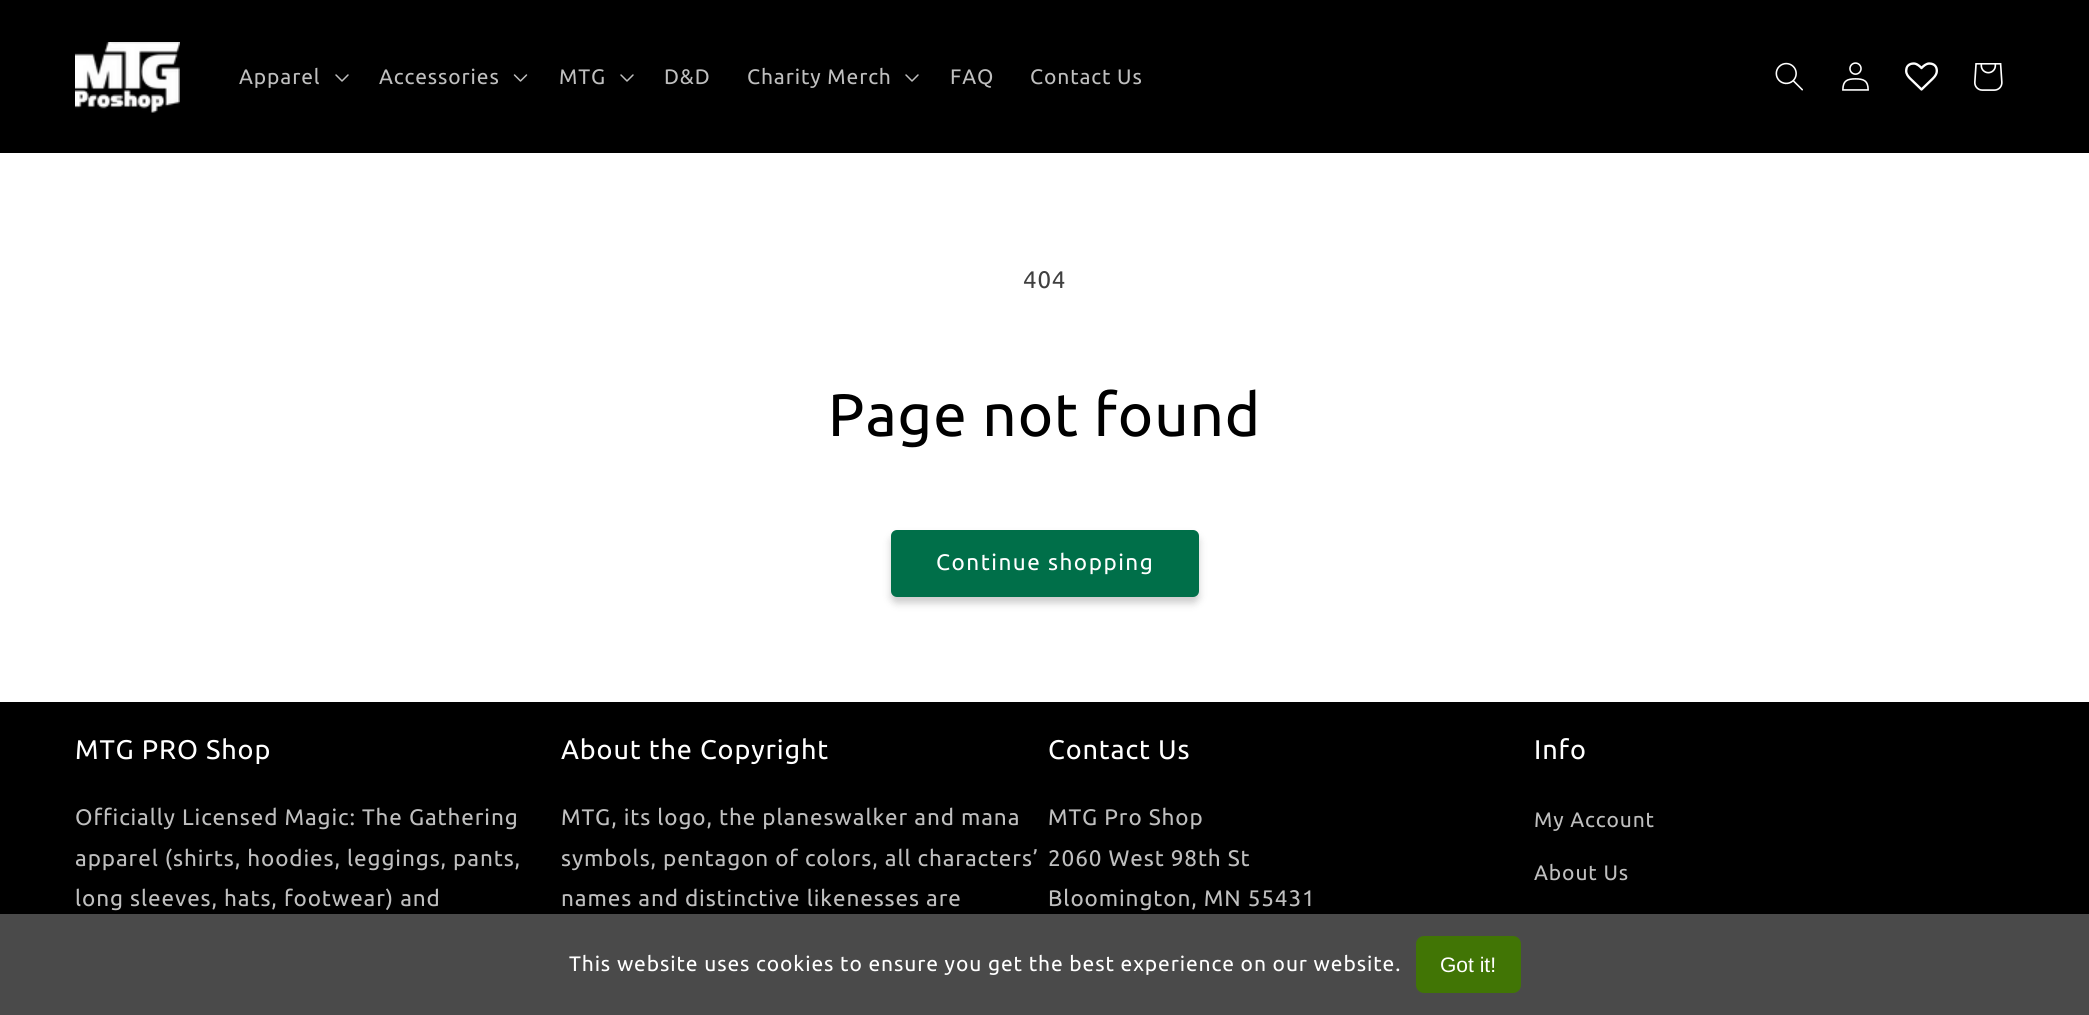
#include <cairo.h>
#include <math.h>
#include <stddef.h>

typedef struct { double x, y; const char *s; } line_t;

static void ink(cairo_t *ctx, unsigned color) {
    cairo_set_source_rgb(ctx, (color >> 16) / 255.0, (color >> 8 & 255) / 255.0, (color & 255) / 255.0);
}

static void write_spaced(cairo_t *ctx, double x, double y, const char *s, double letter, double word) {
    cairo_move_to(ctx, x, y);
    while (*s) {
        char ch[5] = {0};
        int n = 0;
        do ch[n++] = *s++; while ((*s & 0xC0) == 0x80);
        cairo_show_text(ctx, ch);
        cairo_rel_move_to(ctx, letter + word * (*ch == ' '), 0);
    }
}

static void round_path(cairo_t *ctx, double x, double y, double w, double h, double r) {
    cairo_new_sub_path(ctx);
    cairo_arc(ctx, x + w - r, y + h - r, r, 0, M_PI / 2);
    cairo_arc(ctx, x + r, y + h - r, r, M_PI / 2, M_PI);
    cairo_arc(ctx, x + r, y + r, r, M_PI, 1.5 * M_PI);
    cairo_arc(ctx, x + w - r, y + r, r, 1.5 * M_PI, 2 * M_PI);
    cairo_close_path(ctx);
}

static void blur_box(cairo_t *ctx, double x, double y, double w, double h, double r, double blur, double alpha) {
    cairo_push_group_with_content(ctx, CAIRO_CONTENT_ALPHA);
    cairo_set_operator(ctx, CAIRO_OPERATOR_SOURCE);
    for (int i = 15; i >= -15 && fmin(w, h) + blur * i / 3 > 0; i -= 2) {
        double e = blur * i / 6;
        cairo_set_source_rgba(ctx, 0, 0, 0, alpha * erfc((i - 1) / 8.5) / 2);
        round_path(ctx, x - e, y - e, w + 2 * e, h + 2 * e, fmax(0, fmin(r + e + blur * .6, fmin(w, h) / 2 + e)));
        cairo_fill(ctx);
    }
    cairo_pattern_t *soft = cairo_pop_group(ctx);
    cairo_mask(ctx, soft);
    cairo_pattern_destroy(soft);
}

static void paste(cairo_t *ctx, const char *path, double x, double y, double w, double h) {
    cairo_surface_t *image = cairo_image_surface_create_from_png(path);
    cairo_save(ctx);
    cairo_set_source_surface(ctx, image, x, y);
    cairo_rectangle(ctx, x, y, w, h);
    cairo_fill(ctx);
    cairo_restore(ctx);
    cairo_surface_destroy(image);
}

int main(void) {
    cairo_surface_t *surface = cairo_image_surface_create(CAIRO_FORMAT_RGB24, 2089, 1015);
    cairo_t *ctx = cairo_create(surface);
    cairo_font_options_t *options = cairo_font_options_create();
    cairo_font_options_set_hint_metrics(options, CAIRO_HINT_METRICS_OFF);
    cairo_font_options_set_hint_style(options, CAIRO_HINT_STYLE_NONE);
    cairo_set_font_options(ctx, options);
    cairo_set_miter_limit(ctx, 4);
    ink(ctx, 0xFFFFFF);
    cairo_paint(ctx);
    ink(ctx, 0x000000);
    cairo_rectangle(ctx, 0, 0, 2089, 153);
    cairo_fill(ctx);
    paste(ctx, "media/1.png", 75, 42, 105, 71);
    cairo_select_font_face(ctx, "Ubuntu", CAIRO_FONT_SLANT_NORMAL, CAIRO_FONT_WEIGHT_NORMAL);
    cairo_set_font_size(ctx, 21);
    ink(ctx, 0xBFBFBF);
    write_spaced(ctx, 239, 84, "Apparel", 0.9, 0);
    paste(ctx, "media/2.png", 335, 74, 14, 8);
    write_spaced(ctx, 379, 84, "Accessories", 0.9, 0);
    paste(ctx, "media/3.png", 513, 74, 15, 8);
    write_spaced(ctx, 559, 84, "MTG", 0.9, 0);
    paste(ctx, "media/2.png", 620, 74, 14, 8);
    write_spaced(ctx, 664, 84, "D&D", 0.9, 0);
    write_spaced(ctx, 747, 84, "Charity Merch", 0.9, 0);
    paste(ctx, "media/2.png", 905, 74, 14, 8);
    write_spaced(ctx, 950, 84, "FAQ", 0.9, 0);
    write_spaced(ctx, 1030, 84, "Contact Us", 0.9, 0);
    paste(ctx, "media/4.png", 1775, 62, 28, 29);
    paste(ctx, "media/5.png", 1842, 62, 27, 29);
    paste(ctx, "media/6.png", 1905, 62, 33, 29);
    paste(ctx, "media/7.png", 1974, 63, 29, 28);
    cairo_set_font_size(ctx, 24);
    ink(ctx, 0x404040);
    write_spaced(ctx, 1023, 288, "404", 0.9, 0);
    cairo_set_font_size(ctx, 60);
    ink(ctx, 0x000000);
    write_spaced(ctx, 828, 436, "Page not found", 0.9, 0);
    ink(ctx, 0x000000);
    blur_box(ctx, 891, 536, 308, 67, 6, 4, 0.2);
    ink(ctx, 0x006F49);
    round_path(ctx, 891, 530, 308, 67, 6);
    cairo_fill(ctx);
    cairo_set_font_size(ctx, 22.5);
    ink(ctx, 0xFFFFFF);
    write_spaced(ctx, 936, 570, "Continue shopping", 1.5, 0);
    ink(ctx, 0x000000);
    cairo_rectangle(ctx, 0, 702, 2089, 212);
    cairo_fill(ctx);
    cairo_set_font_size(ctx, 27);
    ink(ctx, 0xFFFFFF);
    write_spaced(ctx, 75, 759, "MTG PRO Shop", 0.9, 0);
    cairo_set_font_size(ctx, 22.5);
    ink(ctx, 0xBFBFBF);
    {
        static const line_t items[] = {
            {75, 825, "Officially Licensed Magic: The Gathering"},
            {75, 866, "apparel (shirts, hoodies, leggings, pants,"},
            {75, 906, "long sleeves, hats, footwear) and"},
        };
        for (size_t i = 0; i < sizeof items / sizeof *items; i++) {
            write_spaced(ctx, items[i].x, items[i].y, items[i].s, 0.9, 0);
        }
    }
    cairo_set_font_size(ctx, 27);
    ink(ctx, 0xFFFFFF);
    write_spaced(ctx, 561, 759, "About the Copyright", 0.9, 0);
    cairo_set_font_size(ctx, 22.5);
    ink(ctx, 0xBFBFBF);
    {
        static const line_t items[] = {
            {561, 825, "MTG, its logo, the planeswalker and mana"},
            {561, 866, "symbols, pentagon of colors, all characters’"},
            {561, 906, "names and distinctive likenesses are"},
        };
        for (size_t i = 0; i < sizeof items / sizeof *items; i++) {
            write_spaced(ctx, items[i].x, items[i].y, items[i].s, 0.9, 0);
        }
    }
    cairo_set_font_size(ctx, 27);
    ink(ctx, 0xFFFFFF);
    write_spaced(ctx, 1048, 759, "Contact Us", 0.9, 0);
    cairo_set_font_size(ctx, 22.5);
    ink(ctx, 0xBFBFBF);
    {
        static const line_t items[] = {
            {1048, 825, "MTG Pro Shop"},
            {1048, 866, "2060 West 98th St"},
            {1048, 906, "Bloomington, MN 55431"},
        };
        for (size_t i = 0; i < sizeof items / sizeof *items; i++) {
            write_spaced(ctx, items[i].x, items[i].y, items[i].s, 0.9, 0);
        }
    }
    cairo_set_font_size(ctx, 27);
    ink(ctx, 0xFFFFFF);
    write_spaced(ctx, 1534, 759, "Info", 0.9, 0);
    cairo_set_font_size(ctx, 21);
    ink(ctx, 0xBFBFBF);
    write_spaced(ctx, 1534, 827, "My Account", 0.9, 0);
    write_spaced(ctx, 1534, 880, "About Us", 0.9, 0);
    ink(ctx, 0x4A4A4A);
    cairo_rectangle(ctx, 0, 914, 2089, 101);
    cairo_fill(ctx);
    ink(ctx, 0xFFFFFF);
    write_spaced(ctx, 569, 971, "This website uses cookies to ensure you get the best experience on our website.", 0.9, 0);
    ink(ctx, 0x417505);
    round_path(ctx, 1416, 936, 105, 57, 8);
    cairo_fill(ctx);
    cairo_select_font_face(ctx, "Liberation Sans", CAIRO_FONT_SLANT_NORMAL, CAIRO_FONT_WEIGHT_NORMAL);
    ink(ctx, 0xFFFFFF);
    cairo_move_to(ctx, 1440, 972);
    cairo_show_text(ctx, "Got it!");
    cairo_surface_write_to_png(surface, "image.png");
    cairo_font_options_destroy(options);
    cairo_destroy(ctx);
    cairo_surface_destroy(surface);
    return 0;
}
